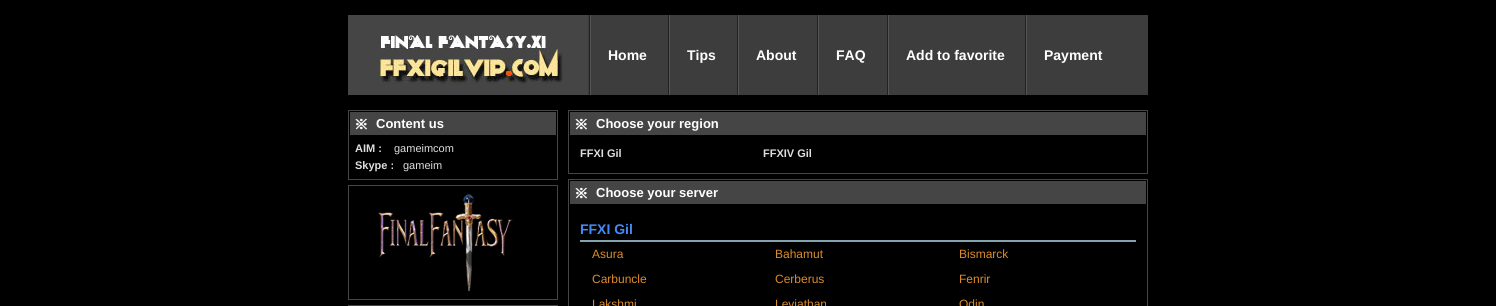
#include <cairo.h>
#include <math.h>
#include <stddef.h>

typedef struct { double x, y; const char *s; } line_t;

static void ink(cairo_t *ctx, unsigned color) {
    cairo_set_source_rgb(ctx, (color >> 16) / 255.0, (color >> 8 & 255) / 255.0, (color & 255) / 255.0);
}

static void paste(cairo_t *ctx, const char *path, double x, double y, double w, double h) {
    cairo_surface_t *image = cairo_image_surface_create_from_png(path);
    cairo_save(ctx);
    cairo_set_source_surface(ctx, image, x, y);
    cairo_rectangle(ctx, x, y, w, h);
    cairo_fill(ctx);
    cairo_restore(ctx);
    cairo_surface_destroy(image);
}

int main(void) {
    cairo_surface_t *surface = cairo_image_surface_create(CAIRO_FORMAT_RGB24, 1496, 306);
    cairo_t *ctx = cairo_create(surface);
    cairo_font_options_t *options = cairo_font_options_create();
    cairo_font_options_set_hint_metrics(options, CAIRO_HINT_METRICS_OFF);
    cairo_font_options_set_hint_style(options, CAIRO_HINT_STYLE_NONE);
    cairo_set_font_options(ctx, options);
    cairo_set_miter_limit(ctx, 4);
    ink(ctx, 0x000000);
    cairo_paint(ctx);
    ink(ctx, 0x454545);
    cairo_rectangle(ctx, 348, 15, 240, 80);
    cairo_fill(ctx);
    paste(ctx, "media/1.png", 380, 34, 183, 50);
    ink(ctx, 0x3D3D3D);
    cairo_rectangle(ctx, 588, 15, 560, 80);
    cairo_fill(ctx);
    paste(ctx, "media/2.png", 589, 15, 2, 80);
    cairo_select_font_face(ctx, "Liberation Sans", CAIRO_FONT_SLANT_NORMAL, CAIRO_FONT_WEIGHT_BOLD);
    cairo_set_font_size(ctx, 14);
    ink(ctx, 0xFFFFFF);
    cairo_move_to(ctx, 608, 60);
    cairo_show_text(ctx, "Home");
    paste(ctx, "media/2.png", 668, 15, 2, 80);
    cairo_move_to(ctx, 687, 60);
    cairo_show_text(ctx, "Tips");
    paste(ctx, "media/2.png", 737, 15, 2, 80);
    cairo_move_to(ctx, 756, 60);
    cairo_show_text(ctx, "About");
    paste(ctx, "media/2.png", 817, 15, 2, 80);
    cairo_move_to(ctx, 836, 60);
    cairo_show_text(ctx, "FAQ");
    paste(ctx, "media/2.png", 887, 15, 2, 80);
    cairo_move_to(ctx, 906, 60);
    cairo_show_text(ctx, "Add to favorite");
    paste(ctx, "media/2.png", 1025, 15, 2, 80);
    cairo_move_to(ctx, 1044, 60);
    cairo_show_text(ctx, "Payment");
    cairo_rectangle(ctx, 348.5, 110.5, 209, 69);
    ink(ctx, 0x454545);
    cairo_set_line_width(ctx, 1);
    cairo_stroke(ctx);
    cairo_rectangle(ctx, 350, 112, 206, 23);
    cairo_fill(ctx);
    paste(ctx, "media/3.png", 355, 118, 12, 12);
    cairo_set_font_size(ctx, 13);
    ink(ctx, 0xFFFFFF);
    cairo_move_to(ctx, 376, 128);
    cairo_show_text(ctx, "Content us");
    cairo_set_font_size(ctx, 11);
    ink(ctx, 0xDEDEDE);
    cairo_move_to(ctx, 355, 152);
    cairo_show_text(ctx, "AIM :");
    cairo_select_font_face(ctx, "Liberation Sans", CAIRO_FONT_SLANT_NORMAL, CAIRO_FONT_WEIGHT_NORMAL);
    cairo_move_to(ctx, 394, 152);
    cairo_show_text(ctx, "gameimcom");
    cairo_select_font_face(ctx, "Liberation Sans", CAIRO_FONT_SLANT_NORMAL, CAIRO_FONT_WEIGHT_BOLD);
    cairo_move_to(ctx, 355, 169);
    cairo_show_text(ctx, "Skype :");
    cairo_select_font_face(ctx, "Liberation Sans", CAIRO_FONT_SLANT_NORMAL, CAIRO_FONT_WEIGHT_NORMAL);
    cairo_move_to(ctx, 403, 169);
    cairo_show_text(ctx, "gameim");
    cairo_rectangle(ctx, 348.5, 185.5, 209, 114);
    ink(ctx, 0x454545);
    cairo_stroke(ctx);
    paste(ctx, "media/4.png", 378, 194, 135, 97);
    cairo_rectangle(ctx, 348.5, 305.5, 209, 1);
    cairo_stroke(ctx);
    cairo_rectangle(ctx, 568.5, 110.5, 579, 63);
    cairo_stroke(ctx);
    cairo_rectangle(ctx, 570, 112, 576, 23);
    cairo_fill(ctx);
    paste(ctx, "media/3.png", 575, 118, 12, 12);
    cairo_select_font_face(ctx, "Liberation Sans", CAIRO_FONT_SLANT_NORMAL, CAIRO_FONT_WEIGHT_BOLD);
    cairo_set_font_size(ctx, 13);
    ink(ctx, 0xFFFFFF);
    cairo_move_to(ctx, 596, 128);
    cairo_show_text(ctx, "Choose your region");
    cairo_set_font_size(ctx, 11);
    ink(ctx, 0xDEDEDE);
    cairo_move_to(ctx, 580, 157);
    cairo_show_text(ctx, "FFXI Gil");
    cairo_move_to(ctx, 763, 157);
    cairo_show_text(ctx, "FFXIV Gil");
    cairo_rectangle(ctx, 568.5, 179.5, 579, 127);
    ink(ctx, 0x454545);
    cairo_stroke(ctx);
    cairo_rectangle(ctx, 570, 181, 576, 23);
    cairo_fill(ctx);
    paste(ctx, "media/3.png", 575, 187, 12, 12);
    cairo_set_font_size(ctx, 13);
    ink(ctx, 0xFFFFFF);
    cairo_move_to(ctx, 596, 197);
    cairo_show_text(ctx, "Choose your server");
    ink(ctx, 0x83A3AE);
    cairo_rectangle(ctx, 580, 240, 556, 2);
    cairo_fill(ctx);
    cairo_set_font_size(ctx, 14);
    ink(ctx, 0x4589F9);
    cairo_move_to(ctx, 580, 234);
    cairo_show_text(ctx, "FFXI Gil");
    cairo_select_font_face(ctx, "Liberation Sans", CAIRO_FONT_SLANT_NORMAL, CAIRO_FONT_WEIGHT_NORMAL);
    cairo_set_font_size(ctx, 12);
    ink(ctx, 0xDC8C2B);
    {
        static const line_t items[] = {
            {592, 258, "Asura"},
            {775, 258, "Bahamut"},
            {959, 258, "Bismarck"},
            {592, 283, "Carbuncle"},
            {775, 283, "Cerberus"},
            {959, 283, "Fenrir"},
            {592, 308, "Lakshmi"},
            {775, 308, "Leviathan"},
            {959, 308, "Odin"},
        };
        for (size_t i = 0; i < sizeof items / sizeof *items; i++) {
            cairo_move_to(ctx, items[i].x, items[i].y);
            cairo_show_text(ctx, items[i].s);
        }
    }
    cairo_surface_write_to_png(surface, "image.png");
    cairo_font_options_destroy(options);
    cairo_destroy(ctx);
    cairo_surface_destroy(surface);
    return 0;
}
